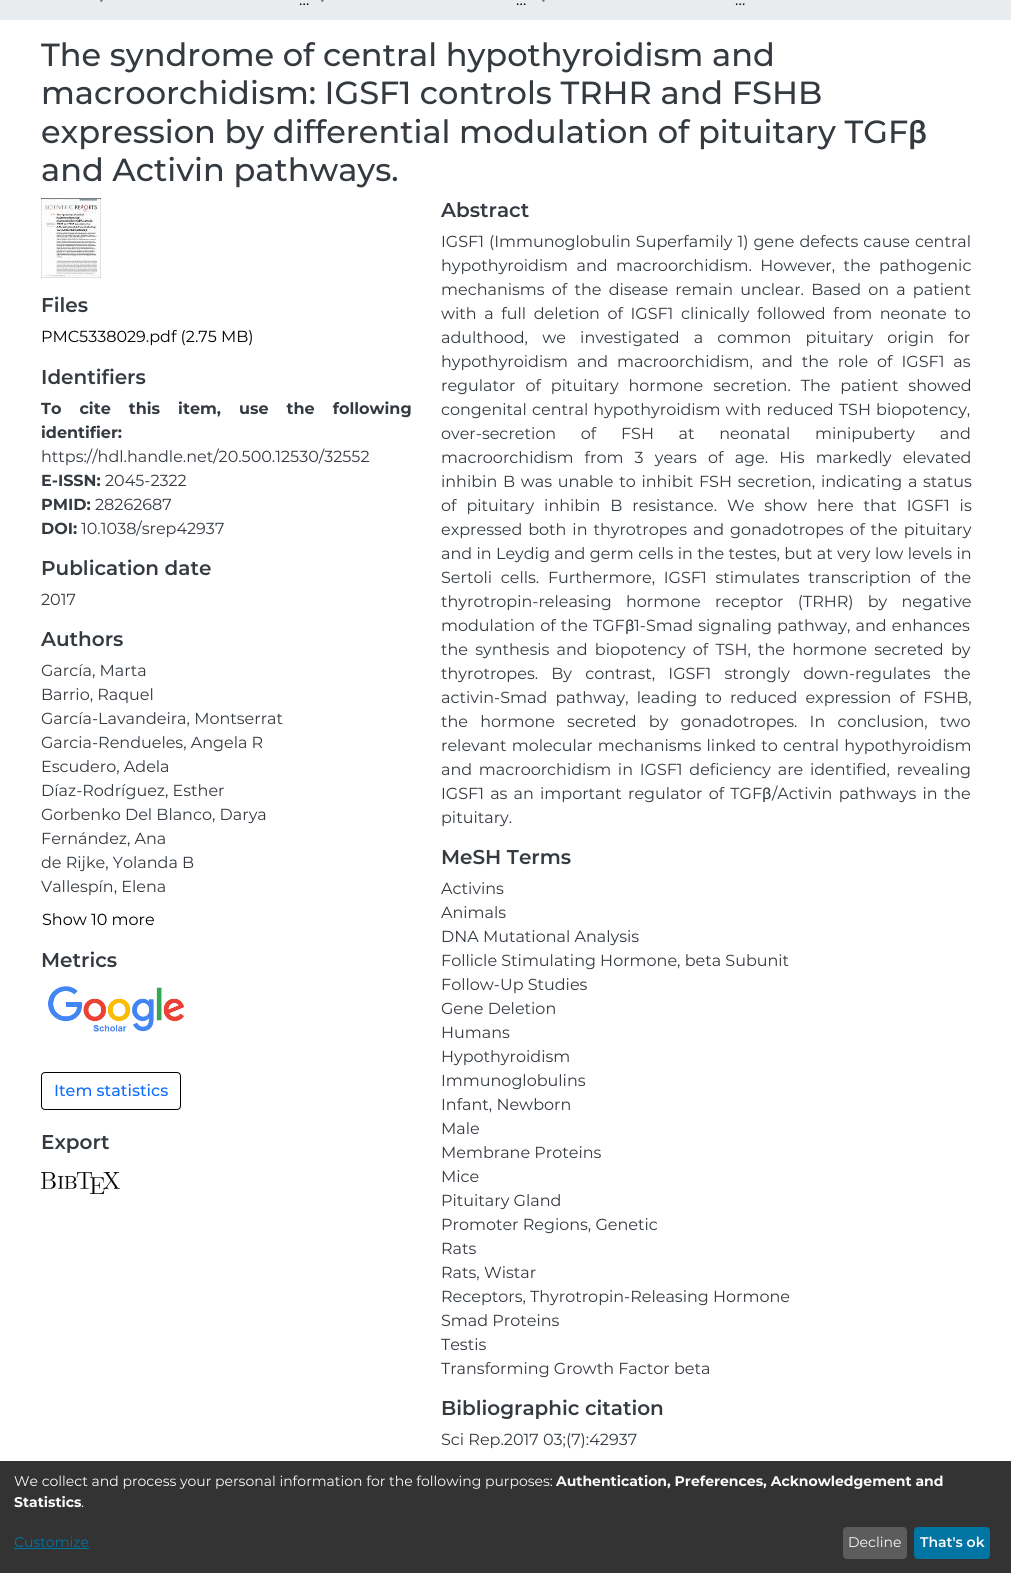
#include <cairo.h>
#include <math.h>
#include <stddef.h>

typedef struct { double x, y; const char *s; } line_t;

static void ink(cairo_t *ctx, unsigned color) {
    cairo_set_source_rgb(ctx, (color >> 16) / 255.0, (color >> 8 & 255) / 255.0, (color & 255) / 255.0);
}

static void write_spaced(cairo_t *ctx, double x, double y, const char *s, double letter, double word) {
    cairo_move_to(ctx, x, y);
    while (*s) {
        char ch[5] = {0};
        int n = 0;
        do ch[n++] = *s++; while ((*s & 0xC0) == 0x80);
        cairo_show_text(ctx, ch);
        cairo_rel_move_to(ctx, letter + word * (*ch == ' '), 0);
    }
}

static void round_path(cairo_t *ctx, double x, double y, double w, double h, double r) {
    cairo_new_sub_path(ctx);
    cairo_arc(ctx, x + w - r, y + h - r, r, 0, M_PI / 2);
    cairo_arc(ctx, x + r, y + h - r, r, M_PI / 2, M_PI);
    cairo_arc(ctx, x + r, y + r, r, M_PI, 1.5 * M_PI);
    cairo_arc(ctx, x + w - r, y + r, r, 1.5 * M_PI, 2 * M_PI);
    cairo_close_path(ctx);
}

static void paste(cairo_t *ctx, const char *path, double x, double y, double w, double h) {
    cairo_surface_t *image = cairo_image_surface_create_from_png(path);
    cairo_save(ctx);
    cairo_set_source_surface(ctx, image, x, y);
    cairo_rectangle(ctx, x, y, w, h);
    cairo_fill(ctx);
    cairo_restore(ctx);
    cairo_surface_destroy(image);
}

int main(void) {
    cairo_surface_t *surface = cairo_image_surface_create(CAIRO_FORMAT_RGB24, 1011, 1573);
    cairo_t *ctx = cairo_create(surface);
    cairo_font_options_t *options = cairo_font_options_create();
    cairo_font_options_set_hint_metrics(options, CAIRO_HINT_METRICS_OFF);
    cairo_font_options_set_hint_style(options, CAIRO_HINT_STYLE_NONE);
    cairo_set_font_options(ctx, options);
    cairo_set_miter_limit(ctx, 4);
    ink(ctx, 0xFFFFFF);
    cairo_paint(ctx);
    ink(ctx, 0xE9ECEF);
    cairo_rectangle(ctx, 0, 0, 1011, 20);
    cairo_fill(ctx);
    cairo_select_font_face(ctx, "Montserrat", CAIRO_FONT_SLANT_NORMAL, CAIRO_FONT_WEIGHT_NORMAL);
    cairo_set_font_size(ctx, 16);
    ink(ctx, 0x6C757D);
    cairo_move_to(ctx, 99, 5);
    cairo_show_text(ctx, "•");
    ink(ctx, 0x000000);
    cairo_move_to(ctx, 299, 5);
    cairo_show_text(ctx, "…");
    ink(ctx, 0x6C757D);
    cairo_move_to(ctx, 320, 5);
    cairo_show_text(ctx, "•");
    ink(ctx, 0x000000);
    cairo_move_to(ctx, 516, 5);
    cairo_show_text(ctx, "…");
    ink(ctx, 0x6C757D);
    cairo_move_to(ctx, 541, 5);
    cairo_show_text(ctx, "•");
    ink(ctx, 0x040D11);
    cairo_move_to(ctx, 735, 5);
    cairo_show_text(ctx, "…");
    cairo_select_font_face(ctx, "Montserrat Medium", CAIRO_FONT_SLANT_NORMAL, CAIRO_FONT_WEIGHT_NORMAL);
    cairo_set_font_size(ctx, 32);
    ink(ctx, 0x343A40);
    {
        static const line_t items[] = {
            {41, 66, "The syndrome of central hypothyroidism and"},
            {41, 104, "macroorchidism: IGSF1 controls TRHR and FSHB"},
            {41, 143, "expression by differential modulation of pituitary TGF"},
        };
        for (size_t i = 0; i < sizeof items / sizeof *items; i++) {
            cairo_move_to(ctx, items[i].x, items[i].y);
            cairo_show_text(ctx, items[i].s);
        }
    }
    cairo_select_font_face(ctx, "Roboto Medium", CAIRO_FONT_SLANT_NORMAL, CAIRO_FONT_WEIGHT_NORMAL);
    cairo_move_to(ctx, 908, 143);
    cairo_show_text(ctx, "β");
    cairo_select_font_face(ctx, "Montserrat Medium", CAIRO_FONT_SLANT_NORMAL, CAIRO_FONT_WEIGHT_NORMAL);
    cairo_move_to(ctx, 41, 181);
    cairo_show_text(ctx, "and Activin pathways.");
    paste(ctx, "media/1.png", 41, 198, 60, 80);
    cairo_select_font_face(ctx, "Montserrat SemiBold", CAIRO_FONT_SLANT_NORMAL, CAIRO_FONT_WEIGHT_NORMAL);
    cairo_set_font_size(ctx, 20);
    cairo_move_to(ctx, 41, 312);
    cairo_show_text(ctx, "Files");
    cairo_select_font_face(ctx, "Montserrat", CAIRO_FONT_SLANT_NORMAL, CAIRO_FONT_WEIGHT_NORMAL);
    cairo_set_font_size(ctx, 16);
    ink(ctx, 0x000000);
    cairo_move_to(ctx, 41, 342);
    cairo_show_text(ctx, "PMC5338029.pdf (2.75 MB)");
    cairo_select_font_face(ctx, "Montserrat SemiBold", CAIRO_FONT_SLANT_NORMAL, CAIRO_FONT_WEIGHT_NORMAL);
    cairo_set_font_size(ctx, 20);
    ink(ctx, 0x343A40);
    cairo_move_to(ctx, 41, 384);
    cairo_show_text(ctx, "Identifiers");
    cairo_select_font_face(ctx, "Montserrat", CAIRO_FONT_SLANT_NORMAL, CAIRO_FONT_WEIGHT_BOLD);
    cairo_set_font_size(ctx, 16);
    write_spaced(ctx, 41, 414, "To cite this item, use the following", 0, 13.5);
    cairo_move_to(ctx, 41, 438);
    cairo_show_text(ctx, "identifier:");
    cairo_select_font_face(ctx, "Montserrat", CAIRO_FONT_SLANT_NORMAL, CAIRO_FONT_WEIGHT_NORMAL);
    cairo_move_to(ctx, 41, 462);
    cairo_show_text(ctx, "https://hdl.handle.net/20.500.12530/32552");
    cairo_select_font_face(ctx, "Montserrat", CAIRO_FONT_SLANT_NORMAL, CAIRO_FONT_WEIGHT_BOLD);
    cairo_move_to(ctx, 41, 486);
    cairo_show_text(ctx, "E-ISSN:");
    cairo_select_font_face(ctx, "Montserrat", CAIRO_FONT_SLANT_NORMAL, CAIRO_FONT_WEIGHT_NORMAL);
    cairo_move_to(ctx, 105, 486);
    cairo_show_text(ctx, "2045-2322");
    cairo_select_font_face(ctx, "Montserrat", CAIRO_FONT_SLANT_NORMAL, CAIRO_FONT_WEIGHT_BOLD);
    cairo_move_to(ctx, 41, 510);
    cairo_show_text(ctx, "PMID:");
    cairo_select_font_face(ctx, "Montserrat", CAIRO_FONT_SLANT_NORMAL, CAIRO_FONT_WEIGHT_NORMAL);
    cairo_move_to(ctx, 95, 510);
    cairo_show_text(ctx, "28262687");
    cairo_select_font_face(ctx, "Montserrat", CAIRO_FONT_SLANT_NORMAL, CAIRO_FONT_WEIGHT_BOLD);
    cairo_move_to(ctx, 41, 534);
    cairo_show_text(ctx, "DOI:");
    cairo_select_font_face(ctx, "Montserrat", CAIRO_FONT_SLANT_NORMAL, CAIRO_FONT_WEIGHT_NORMAL);
    cairo_move_to(ctx, 81, 534);
    cairo_show_text(ctx, "10.1038/srep42937");
    cairo_select_font_face(ctx, "Montserrat SemiBold", CAIRO_FONT_SLANT_NORMAL, CAIRO_FONT_WEIGHT_NORMAL);
    cairo_set_font_size(ctx, 20);
    cairo_move_to(ctx, 41, 575);
    cairo_show_text(ctx, "Publication date");
    cairo_select_font_face(ctx, "Montserrat", CAIRO_FONT_SLANT_NORMAL, CAIRO_FONT_WEIGHT_NORMAL);
    cairo_set_font_size(ctx, 16);
    cairo_move_to(ctx, 41, 605);
    cairo_show_text(ctx, "2017");
    cairo_select_font_face(ctx, "Montserrat SemiBold", CAIRO_FONT_SLANT_NORMAL, CAIRO_FONT_WEIGHT_NORMAL);
    cairo_set_font_size(ctx, 20);
    cairo_move_to(ctx, 41, 646);
    cairo_show_text(ctx, "Authors");
    cairo_select_font_face(ctx, "Montserrat", CAIRO_FONT_SLANT_NORMAL, CAIRO_FONT_WEIGHT_NORMAL);
    cairo_set_font_size(ctx, 16);
    {
        static const line_t items[] = {
            {41, 676, "García, Marta"},
            {41, 700, "Barrio, Raquel"},
            {41, 724, "García-Lavandeira, Montserrat"},
            {41, 748, "Garcia-Rendueles, Angela R"},
            {41, 772, "Escudero, Adela"},
            {41, 796, "Díaz-Rodríguez, Esther"},
            {41, 820, "Gorbenko Del Blanco, Darya"},
            {41, 844, "Fernández, Ana"},
            {41, 868, "de Rijke, Yolanda B"},
            {41, 892, "Vallespín, Elena"},
        };
        for (size_t i = 0; i < sizeof items / sizeof *items; i++) {
            cairo_move_to(ctx, items[i].x, items[i].y);
            cairo_show_text(ctx, items[i].s);
        }
    }
    ink(ctx, 0x000000);
    cairo_move_to(ctx, 42, 925);
    cairo_show_text(ctx, "Show 10 more");
    cairo_select_font_face(ctx, "Montserrat SemiBold", CAIRO_FONT_SLANT_NORMAL, CAIRO_FONT_WEIGHT_NORMAL);
    cairo_set_font_size(ctx, 20);
    ink(ctx, 0x343A40);
    cairo_move_to(ctx, 41, 967);
    cairo_show_text(ctx, "Metrics");
    paste(ctx, "media/2.png", 48, 986, 137, 46);
    round_path(ctx, 41.5, 1072.5, 139, 37, 3.5);
    ink(ctx, 0x000000);
    cairo_set_line_width(ctx, 1);
    cairo_stroke(ctx);
    cairo_select_font_face(ctx, "Montserrat Medium", CAIRO_FONT_SLANT_NORMAL, CAIRO_FONT_WEIGHT_NORMAL);
    cairo_set_font_size(ctx, 16);
    ink(ctx, 0x0D6EFD);
    cairo_move_to(ctx, 54, 1096);
    cairo_show_text(ctx, "Item statistics");
    cairo_select_font_face(ctx, "Montserrat SemiBold", CAIRO_FONT_SLANT_NORMAL, CAIRO_FONT_WEIGHT_NORMAL);
    cairo_set_font_size(ctx, 20);
    ink(ctx, 0x343A40);
    cairo_move_to(ctx, 41, 1149);
    cairo_show_text(ctx, "Export");
    paste(ctx, "media/3.png", 41, 1172, 79, 22);
    cairo_move_to(ctx, 441, 217);
    cairo_show_text(ctx, "Abstract");
    cairo_select_font_face(ctx, "Montserrat", CAIRO_FONT_SLANT_NORMAL, CAIRO_FONT_WEIGHT_NORMAL);
    cairo_set_font_size(ctx, 16);
    write_spaced(ctx, 441, 247, "IGSF1 (Immunoglobulin Superfamily 1) gene defects cause central", 0, 0.75);
    write_spaced(ctx, 441, 271, "hypothyroidism and macroorchidism. However, the pathogenic", 0, 4.25);
    write_spaced(ctx, 441, 295, "mechanisms of the disease remain unclear. Based on a patient", 0, 3);
    write_spaced(ctx, 441, 319, "with a full deletion of IGSF1 clinically followed from neonate to", 0, 3.4);
    write_spaced(ctx, 441, 343, "adulthood, we investigated a common pituitary origin for", 0, 10);
    write_spaced(ctx, 441, 367, "hypothyroidism and macroorchidism, and the role of IGSF1 as", 0, 4.75);
    write_spaced(ctx, 441, 391, "regulator of pituitary hormone secretion. The patient showed", 0, 5.75);
    write_spaced(ctx, 441, 415, "congenital central hypothyroidism with reduced TSH biopotency,", 0, 1);
    write_spaced(ctx, 441, 439, "over-secretion of FSH at neonatal minipuberty and", 0, 20.5);
    write_spaced(ctx, 441, 463, "macroorchidism from 3 years of age. His markedly elevated", 0, 7);
    write_spaced(ctx, 441, 487, "inhibin B was unable to inhibit FSH secretion, indicating a status", 0, 1.5);
    write_spaced(ctx, 441, 511, "of pituitary inhibin B resistance. We show here that IGSF1 is", 0, 5.75);
    write_spaced(ctx, 441, 535, "expressed both in thyrotropes and gonadotropes of the pituitary", 0, 1.75);
    write_spaced(ctx, 441, 559, "and in Leydig and germ cells in the testes, but at very low levels in", 0, 0.2);
    write_spaced(ctx, 441, 583, "Sertoli cells. Furthermore, IGSF1 stimulates transcription of the", 0, 4.5);
    write_spaced(ctx, 441, 607, "thyrotropin-releasing hormone receptor (TRHR) by negative", 0, 10);
    write_spaced(ctx, 441, 631, "modulation of the TGF", 0, 1);
    cairo_select_font_face(ctx, "Roboto", CAIRO_FONT_SLANT_NORMAL, CAIRO_FONT_WEIGHT_NORMAL);
    cairo_move_to(ctx, 625, 631);
    cairo_show_text(ctx, "β");
    cairo_select_font_face(ctx, "Montserrat", CAIRO_FONT_SLANT_NORMAL, CAIRO_FONT_WEIGHT_NORMAL);
    write_spaced(ctx, 634, 631, "1-Smad signaling pathway, and enhances", 0, 1);
    write_spaced(ctx, 441, 655, "the synthesis and biopotency of TSH, the hormone secreted by", 0, 3);
    write_spaced(ctx, 441, 679, "thyrotropes. By contrast, IGSF1 strongly down-regulates the", 0, 9);
    write_spaced(ctx, 441, 703, "activin-Smad pathway, leading to reduced expression of FSHB,", 0, 4);
    write_spaced(ctx, 441, 727, "the hormone secreted by gonadotropes. In conclusion, two", 0, 8);
    write_spaced(ctx, 441, 751, "relevant molecular mechanisms linked to central hypothyroidism", 0, 1);
    write_spaced(ctx, 441, 775, "and macroorchidism in IGSF1 deficiency are identified, revealing", 0, 2.5);
    write_spaced(ctx, 441, 799, "IGSF1 as an important regulator of TGF", 0, 2);
    cairo_select_font_face(ctx, "Roboto", CAIRO_FONT_SLANT_NORMAL, CAIRO_FONT_WEIGHT_NORMAL);
    cairo_move_to(ctx, 762, 799);
    cairo_show_text(ctx, "β");
    cairo_select_font_face(ctx, "Montserrat", CAIRO_FONT_SLANT_NORMAL, CAIRO_FONT_WEIGHT_NORMAL);
    write_spaced(ctx, 772, 799, "/Activin pathways in the", 0, 2);
    cairo_move_to(ctx, 441, 823);
    cairo_show_text(ctx, "pituitary.");
    cairo_select_font_face(ctx, "Montserrat SemiBold", CAIRO_FONT_SLANT_NORMAL, CAIRO_FONT_WEIGHT_NORMAL);
    cairo_set_font_size(ctx, 20);
    cairo_move_to(ctx, 441, 864);
    cairo_show_text(ctx, "MeSH Terms");
    cairo_select_font_face(ctx, "Montserrat", CAIRO_FONT_SLANT_NORMAL, CAIRO_FONT_WEIGHT_NORMAL);
    cairo_set_font_size(ctx, 16);
    {
        static const line_t items[] = {
            {441, 894, "Activins"},
            {441, 918, "Animals"},
            {441, 942, "DNA Mutational Analysis"},
            {441, 966, "Follicle Stimulating Hormone, beta Subunit"},
            {441, 990, "Follow-Up Studies"},
            {441, 1014, "Gene Deletion"},
            {441, 1038, "Humans"},
            {441, 1062, "Hypothyroidism"},
            {441, 1086, "Immunoglobulins"},
            {441, 1110, "Infant, Newborn"},
            {441, 1134, "Male"},
            {441, 1158, "Membrane Proteins"},
            {441, 1182, "Mice"},
            {441, 1206, "Pituitary Gland"},
            {441, 1230, "Promoter Regions, Genetic"},
            {441, 1254, "Rats"},
            {441, 1278, "Rats, Wistar"},
            {441, 1302, "Receptors, Thyrotropin-Releasing Hormone"},
            {441, 1326, "Smad Proteins"},
            {441, 1350, "Testis"},
            {441, 1374, "Transforming Growth Factor beta"},
        };
        for (size_t i = 0; i < sizeof items / sizeof *items; i++) {
            cairo_move_to(ctx, items[i].x, items[i].y);
            cairo_show_text(ctx, items[i].s);
        }
    }
    cairo_select_font_face(ctx, "Montserrat SemiBold", CAIRO_FONT_SLANT_NORMAL, CAIRO_FONT_WEIGHT_NORMAL);
    cairo_set_font_size(ctx, 20);
    cairo_move_to(ctx, 441, 1415);
    cairo_show_text(ctx, "Bibliographic citation");
    cairo_select_font_face(ctx, "Montserrat", CAIRO_FONT_SLANT_NORMAL, CAIRO_FONT_WEIGHT_NORMAL);
    cairo_set_font_size(ctx, 16);
    cairo_move_to(ctx, 441, 1445);
    cairo_show_text(ctx, "Sci Rep.2017 03;(7):42937");
    ink(ctx, 0x333333);
    cairo_rectangle(ctx, 0, 1461, 1011, 112);
    cairo_fill(ctx);
    cairo_set_font_size(ctx, 14);
    ink(ctx, 0xFAFAFA);
    cairo_move_to(ctx, 14, 1486);
    cairo_show_text(ctx, "We collect and process your personal information for the following purposes:");
    cairo_select_font_face(ctx, "Montserrat", CAIRO_FONT_SLANT_NORMAL, CAIRO_FONT_WEIGHT_BOLD);
    cairo_move_to(ctx, 556, 1486);
    cairo_show_text(ctx, "Authentication, Preferences, Acknowledgement and");
    cairo_move_to(ctx, 14, 1507);
    cairo_show_text(ctx, "Statistics");
    cairo_select_font_face(ctx, "Montserrat", CAIRO_FONT_SLANT_NORMAL, CAIRO_FONT_WEIGHT_NORMAL);
    cairo_move_to(ctx, 81, 1507);
    cairo_show_text(ctx, ".");
    ink(ctx, 0x0074A3);
    cairo_move_to(ctx, 14, 1547);
    cairo_show_text(ctx, "Customize");
    cairo_rectangle(ctx, 14, 1548, 75, 1);
    cairo_fill(ctx);
    ink(ctx, 0x5C5C5C);
    round_path(ctx, 843, 1527, 64, 32, 4);
    cairo_fill(ctx);
    ink(ctx, 0xFAFAFA);
    cairo_move_to(ctx, 848, 1547);
    cairo_show_text(ctx, "Decline");
    ink(ctx, 0x0074A3);
    round_path(ctx, 914, 1527, 76, 32, 4);
    cairo_fill(ctx);
    cairo_select_font_face(ctx, "Montserrat SemiBold", CAIRO_FONT_SLANT_NORMAL, CAIRO_FONT_WEIGHT_NORMAL);
    ink(ctx, 0xFAFAFA);
    cairo_move_to(ctx, 920, 1547);
    cairo_show_text(ctx, "That's ok");
    cairo_surface_write_to_png(surface, "image.png");
    cairo_font_options_destroy(options);
    cairo_destroy(ctx);
    cairo_surface_destroy(surface);
    return 0;
}
